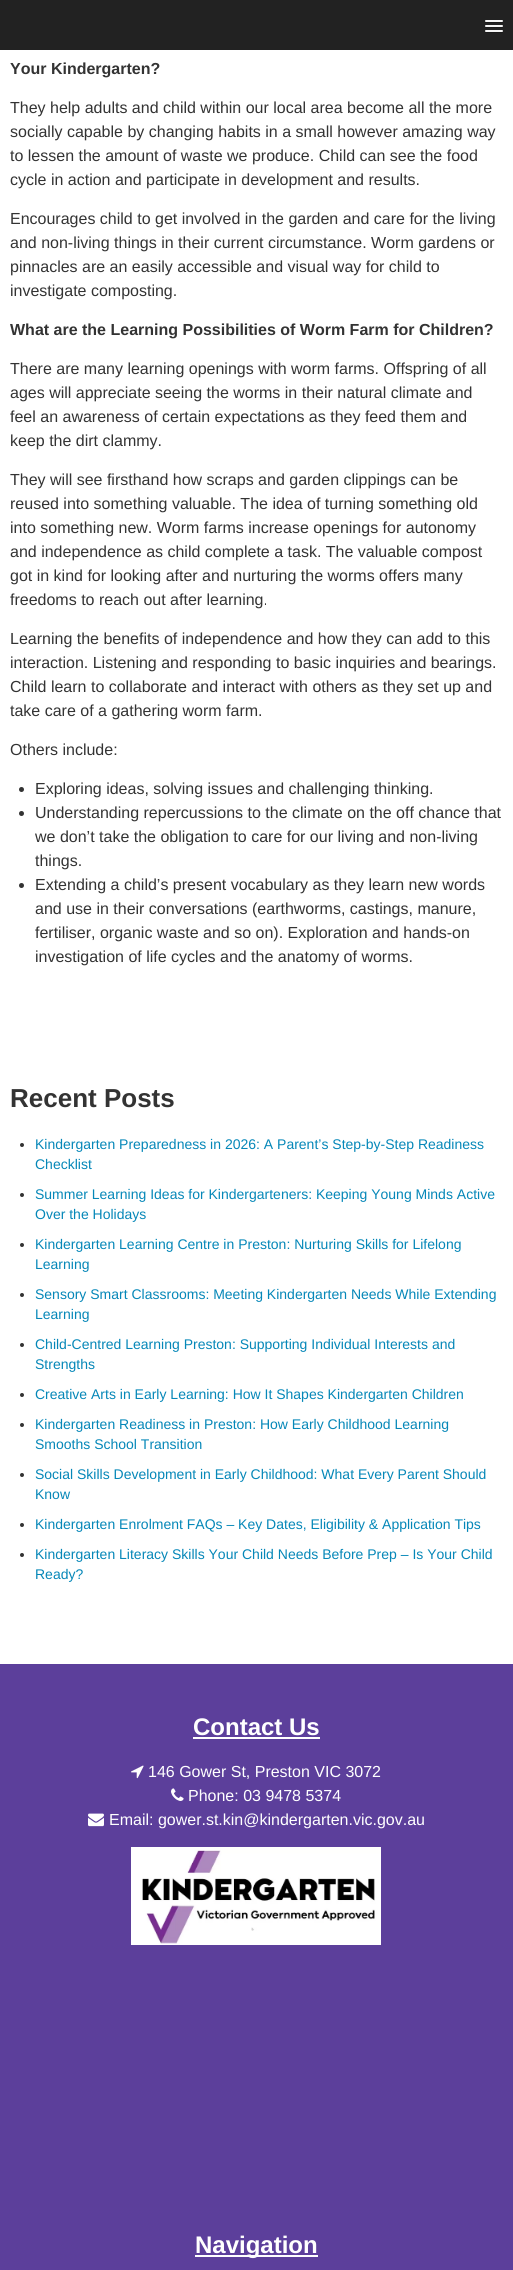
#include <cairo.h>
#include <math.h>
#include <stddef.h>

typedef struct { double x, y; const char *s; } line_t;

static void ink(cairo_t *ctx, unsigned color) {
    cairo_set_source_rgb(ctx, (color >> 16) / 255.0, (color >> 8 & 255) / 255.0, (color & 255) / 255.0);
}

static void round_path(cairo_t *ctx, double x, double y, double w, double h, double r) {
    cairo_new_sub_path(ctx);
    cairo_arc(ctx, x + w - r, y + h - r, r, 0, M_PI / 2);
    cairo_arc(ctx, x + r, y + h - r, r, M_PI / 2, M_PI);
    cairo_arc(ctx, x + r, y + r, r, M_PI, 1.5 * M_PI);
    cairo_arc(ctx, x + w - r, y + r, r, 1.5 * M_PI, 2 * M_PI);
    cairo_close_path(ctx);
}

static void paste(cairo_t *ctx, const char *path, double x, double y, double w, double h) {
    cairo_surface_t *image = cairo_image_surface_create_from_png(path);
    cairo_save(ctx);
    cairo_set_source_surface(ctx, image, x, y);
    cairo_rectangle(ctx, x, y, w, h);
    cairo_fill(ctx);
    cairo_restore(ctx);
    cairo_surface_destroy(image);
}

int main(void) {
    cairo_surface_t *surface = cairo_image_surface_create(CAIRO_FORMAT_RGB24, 513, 2270);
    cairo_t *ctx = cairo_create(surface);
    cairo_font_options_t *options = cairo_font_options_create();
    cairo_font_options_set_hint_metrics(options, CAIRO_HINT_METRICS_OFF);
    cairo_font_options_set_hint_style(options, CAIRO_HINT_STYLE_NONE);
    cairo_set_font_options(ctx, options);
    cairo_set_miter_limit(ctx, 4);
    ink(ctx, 0xFFFFFF);
    cairo_paint(ctx);
    ink(ctx, 0x222222);
    cairo_rectangle(ctx, 0, 0, 513, 50);
    cairo_fill(ctx);
    ink(ctx, 0x1A1A1A);
    cairo_new_path(ctx);
    cairo_move_to(ctx, 485, 21.5);
    cairo_curve_to(ctx, 484, 23.5, 488.5, 23, 488.5, 23);
    cairo_line_to(ctx, 499.5, 23);
    cairo_curve_to(ctx, 499.5, 23, 504, 23.5, 503, 21.5);
    cairo_curve_to(ctx, 502, 22.5, 495.5, 22, 494, 22);
    cairo_curve_to(ctx, 492.5, 22, 486, 22.5, 485, 21.5);
    cairo_close_path(ctx);
    cairo_fill(ctx);
    ink(ctx, 0xF5F5F5);
    round_path(ctx, 485, 20, 18, 2, 1);
    cairo_fill(ctx);
    ink(ctx, 0x1A1A1A);
    cairo_new_path(ctx);
    cairo_move_to(ctx, 485, 26.5);
    cairo_curve_to(ctx, 484, 28.5, 488.5, 28, 488.5, 28);
    cairo_line_to(ctx, 499.5, 28);
    cairo_curve_to(ctx, 499.5, 28, 504, 28.5, 503, 26.5);
    cairo_curve_to(ctx, 502, 27.5, 495.5, 27, 494, 27);
    cairo_curve_to(ctx, 492.5, 27, 486, 27.5, 485, 26.5);
    cairo_close_path(ctx);
    cairo_fill(ctx);
    ink(ctx, 0xF5F5F5);
    round_path(ctx, 485, 25, 18, 2, 1);
    cairo_fill(ctx);
    ink(ctx, 0x1A1A1A);
    cairo_new_path(ctx);
    cairo_move_to(ctx, 485, 31.5);
    cairo_curve_to(ctx, 484, 33.5, 488.5, 33, 488.5, 33);
    cairo_line_to(ctx, 499.5, 33);
    cairo_curve_to(ctx, 499.5, 33, 504, 33.5, 503, 31.5);
    cairo_curve_to(ctx, 502, 32.5, 495.5, 32, 494, 32);
    cairo_curve_to(ctx, 492.5, 32, 486, 32.5, 485, 31.5);
    cairo_close_path(ctx);
    cairo_fill(ctx);
    ink(ctx, 0xF5F5F5);
    round_path(ctx, 485, 30, 18, 2, 1);
    cairo_fill(ctx);
    cairo_select_font_face(ctx, "Liberation Sans", CAIRO_FONT_SLANT_NORMAL, CAIRO_FONT_WEIGHT_BOLD);
    cairo_set_font_size(ctx, 16);
    ink(ctx, 0x333333);
    cairo_move_to(ctx, 10, 74);
    cairo_show_text(ctx, "Your Kindergarten?");
    cairo_select_font_face(ctx, "Liberation Sans", CAIRO_FONT_SLANT_NORMAL, CAIRO_FONT_WEIGHT_NORMAL);
    {
        static const line_t items[] = {
            {10, 113, "They help adults and child within our local area become all the more"},
            {10, 137, "socially capable by changing habits in a small however amazing way"},
            {10, 161, "to lessen the amount of waste we produce. Child can see the food"},
            {10, 185, "cycle in action and participate in development and results."},
            {10, 224, "Encourages child to get involved in the garden and care for the living"},
            {10, 248, "and non-living things in their current circumstance. Worm gardens or"},
            {10, 272, "pinnacles are an easily accessible and visual way for child to"},
            {10, 296, "investigate composting."},
        };
        for (size_t i = 0; i < sizeof items / sizeof *items; i++) {
            cairo_move_to(ctx, items[i].x, items[i].y);
            cairo_show_text(ctx, items[i].s);
        }
    }
    cairo_select_font_face(ctx, "Liberation Sans", CAIRO_FONT_SLANT_NORMAL, CAIRO_FONT_WEIGHT_BOLD);
    cairo_move_to(ctx, 10, 335);
    cairo_show_text(ctx, "What are the Learning Possibilities of Worm Farm for Children?");
    cairo_select_font_face(ctx, "Liberation Sans", CAIRO_FONT_SLANT_NORMAL, CAIRO_FONT_WEIGHT_NORMAL);
    {
        static const line_t items[] = {
            {10, 374, "There are many learning openings with worm farms. Offspring of all"},
            {10, 398, "ages will appreciate seeing the worms in their natural climate and"},
            {10, 422, "feel an awareness of certain expectations as they feed them and"},
            {10, 446, "keep the dirt clammy."},
            {10, 485, "They will see firsthand how scraps and garden clippings can be"},
            {10, 509, "reused into something valuable. The idea of turning something old"},
            {10, 533, "into something new. Worm farms increase openings for autonomy"},
            {10, 557, "and independence as child complete a task. The valuable compost"},
            {10, 581, "got in kind for looking after and nurturing the worms offers many"},
            {10, 605, "freedoms to reach out after learning."},
            {10, 644, "Learning the benefits of independence and how they can add to this"},
            {10, 668, "interaction. Listening and responding to basic inquiries and bearings."},
            {10, 692, "Child learn to collaborate and interact with others as they set up and"},
            {10, 716, "take care of a gathering worm farm."},
            {10, 755, "Others include:"},
        };
        for (size_t i = 0; i < sizeof items / sizeof *items; i++) {
            cairo_move_to(ctx, items[i].x, items[i].y);
            cairo_show_text(ctx, items[i].s);
        }
    }
    cairo_new_path(ctx);
    cairo_arc(ctx, 21.5, 789.5, 2.5, 0, 2 * M_PI);
    cairo_fill(ctx);
    cairo_move_to(ctx, 35, 794);
    cairo_show_text(ctx, "Exploring ideas, solving issues and challenging thinking.");
    cairo_new_path(ctx);
    cairo_arc(ctx, 21.5, 813.5, 2.5, 0, 2 * M_PI);
    cairo_fill(ctx);
    {
        static const line_t items[] = {
            {35, 818, "Understanding repercussions to the climate on the off chance that"},
            {35, 842, "we don’t take the obligation to care for our living and non-living"},
            {35, 866, "things."},
        };
        for (size_t i = 0; i < sizeof items / sizeof *items; i++) {
            cairo_move_to(ctx, items[i].x, items[i].y);
            cairo_show_text(ctx, items[i].s);
        }
    }
    cairo_new_path(ctx);
    cairo_arc(ctx, 21.5, 885.5, 2.5, 0, 2 * M_PI);
    cairo_fill(ctx);
    {
        static const line_t items[] = {
            {35, 890, "Extending a child’s present vocabulary as they learn new words"},
            {35, 914, "and use in their conversations (earthworms, castings, manure,"},
            {35, 938, "fertiliser, organic waste and so on). Exploration and hands-on"},
            {35, 962, "investigation of life cycles and the anatomy of worms."},
        };
        for (size_t i = 0; i < sizeof items / sizeof *items; i++) {
            cairo_move_to(ctx, items[i].x, items[i].y);
            cairo_show_text(ctx, items[i].s);
        }
    }
    cairo_select_font_face(ctx, "Liberation Sans", CAIRO_FONT_SLANT_NORMAL, CAIRO_FONT_WEIGHT_BOLD);
    cairo_set_font_size(ctx, 26);
    cairo_move_to(ctx, 10, 1107);
    cairo_show_text(ctx, "Recent Posts");
    cairo_new_path(ctx);
    cairo_arc(ctx, 22, 1145, 2, 0, 2 * M_PI);
    cairo_fill(ctx);
    cairo_select_font_face(ctx, "Liberation Sans", CAIRO_FONT_SLANT_NORMAL, CAIRO_FONT_WEIGHT_NORMAL);
    cairo_set_font_size(ctx, 14);
    ink(ctx, 0x0587B8);
    cairo_move_to(ctx, 35, 1149);
    cairo_show_text(ctx, "Kindergarten Preparedness in 2026: A Parent’s Step-by-Step Readiness");
    cairo_move_to(ctx, 35, 1169);
    cairo_show_text(ctx, "Checklist");
    ink(ctx, 0x333333);
    cairo_new_path(ctx);
    cairo_arc(ctx, 22, 1195, 2, 0, 2 * M_PI);
    cairo_fill(ctx);
    ink(ctx, 0x0587B8);
    cairo_move_to(ctx, 35, 1199);
    cairo_show_text(ctx, "Summer Learning Ideas for Kindergarteners: Keeping Young Minds Active");
    cairo_move_to(ctx, 35, 1219);
    cairo_show_text(ctx, "Over the Holidays");
    ink(ctx, 0x333333);
    cairo_new_path(ctx);
    cairo_arc(ctx, 22, 1245, 2, 0, 2 * M_PI);
    cairo_fill(ctx);
    ink(ctx, 0x0587B8);
    cairo_move_to(ctx, 35, 1249);
    cairo_show_text(ctx, "Kindergarten Learning Centre in Preston: Nurturing Skills for Lifelong");
    cairo_move_to(ctx, 35, 1269);
    cairo_show_text(ctx, "Learning");
    ink(ctx, 0x333333);
    cairo_new_path(ctx);
    cairo_arc(ctx, 22, 1295, 2, 0, 2 * M_PI);
    cairo_fill(ctx);
    ink(ctx, 0x0587B8);
    cairo_move_to(ctx, 35, 1299);
    cairo_show_text(ctx, "Sensory Smart Classrooms: Meeting Kindergarten Needs While Extending");
    cairo_move_to(ctx, 35, 1319);
    cairo_show_text(ctx, "Learning");
    ink(ctx, 0x333333);
    cairo_new_path(ctx);
    cairo_arc(ctx, 22, 1345, 2, 0, 2 * M_PI);
    cairo_fill(ctx);
    ink(ctx, 0x0587B8);
    cairo_move_to(ctx, 35, 1349);
    cairo_show_text(ctx, "Child-Centred Learning Preston: Supporting Individual Interests and");
    cairo_move_to(ctx, 35, 1369);
    cairo_show_text(ctx, "Strengths");
    ink(ctx, 0x333333);
    cairo_new_path(ctx);
    cairo_arc(ctx, 22, 1395, 2, 0, 2 * M_PI);
    cairo_fill(ctx);
    ink(ctx, 0x0587B8);
    cairo_move_to(ctx, 35, 1399);
    cairo_show_text(ctx, "Creative Arts in Early Learning: How It Shapes Kindergarten Children");
    ink(ctx, 0x333333);
    cairo_new_path(ctx);
    cairo_arc(ctx, 22, 1425, 2, 0, 2 * M_PI);
    cairo_fill(ctx);
    ink(ctx, 0x0587B8);
    cairo_move_to(ctx, 35, 1429);
    cairo_show_text(ctx, "Kindergarten Readiness in Preston: How Early Childhood Learning");
    cairo_move_to(ctx, 35, 1449);
    cairo_show_text(ctx, "Smooths School Transition");
    ink(ctx, 0x333333);
    cairo_new_path(ctx);
    cairo_arc(ctx, 22, 1475, 2, 0, 2 * M_PI);
    cairo_fill(ctx);
    ink(ctx, 0x0587B8);
    cairo_move_to(ctx, 35, 1479);
    cairo_show_text(ctx, "Social Skills Development in Early Childhood: What Every Parent Should");
    cairo_move_to(ctx, 35, 1499);
    cairo_show_text(ctx, "Know");
    ink(ctx, 0x333333);
    cairo_new_path(ctx);
    cairo_arc(ctx, 22, 1525, 2, 0, 2 * M_PI);
    cairo_fill(ctx);
    ink(ctx, 0x0587B8);
    cairo_move_to(ctx, 35, 1529);
    cairo_show_text(ctx, "Kindergarten Enrolment FAQs – Key Dates, Eligibility & Application Tips");
    ink(ctx, 0x333333);
    cairo_new_path(ctx);
    cairo_arc(ctx, 22, 1555, 2, 0, 2 * M_PI);
    cairo_fill(ctx);
    ink(ctx, 0x0587B8);
    cairo_move_to(ctx, 35, 1559);
    cairo_show_text(ctx, "Kindergarten Literacy Skills Your Child Needs Before Prep – Is Your Child");
    cairo_move_to(ctx, 35, 1579);
    cairo_show_text(ctx, "Ready?");
    ink(ctx, 0x5C3F9B);
    cairo_rectangle(ctx, 0, 1664, 513, 606);
    cairo_fill(ctx);
    cairo_select_font_face(ctx, "Liberation Sans", CAIRO_FONT_SLANT_NORMAL, CAIRO_FONT_WEIGHT_BOLD);
    cairo_set_font_size(ctx, 24);
    ink(ctx, 0xFFFFFF);
    cairo_move_to(ctx, 193, 1735);
    cairo_show_text(ctx, "Contact Us");
    cairo_rectangle(ctx, 193, 1737, 127, 2);
    cairo_fill(ctx);
    paste(ctx, "media/1.png", 131, 1765, 13, 14);
    cairo_select_font_face(ctx, "Liberation Sans", CAIRO_FONT_SLANT_NORMAL, CAIRO_FONT_WEIGHT_NORMAL);
    cairo_set_font_size(ctx, 16);
    cairo_move_to(ctx, 148, 1777);
    cairo_show_text(ctx, "146 Gower St, Preston VIC 3072");
    paste(ctx, "media/2.png", 171, 1788, 13, 13);
    cairo_move_to(ctx, 188, 1801);
    cairo_show_text(ctx, "Phone: 03 9478 5374");
    paste(ctx, "media/3.png", 88, 1813, 16, 14);
    cairo_move_to(ctx, 109, 1825);
    cairo_show_text(ctx, "Email: gower.st.kin@kindergarten.vic.gov.au");
    paste(ctx, "media/4.png", 131, 1847, 250, 98);
    cairo_rectangle(ctx, 195, 2255, 123, 2);
    cairo_fill(ctx);
    cairo_select_font_face(ctx, "Liberation Sans", CAIRO_FONT_SLANT_NORMAL, CAIRO_FONT_WEIGHT_BOLD);
    cairo_set_font_size(ctx, 24);
    cairo_move_to(ctx, 195, 2253);
    cairo_show_text(ctx, "Navigation");
    cairo_surface_write_to_png(surface, "image.png");
    cairo_font_options_destroy(options);
    cairo_destroy(ctx);
    cairo_surface_destroy(surface);
    return 0;
}
